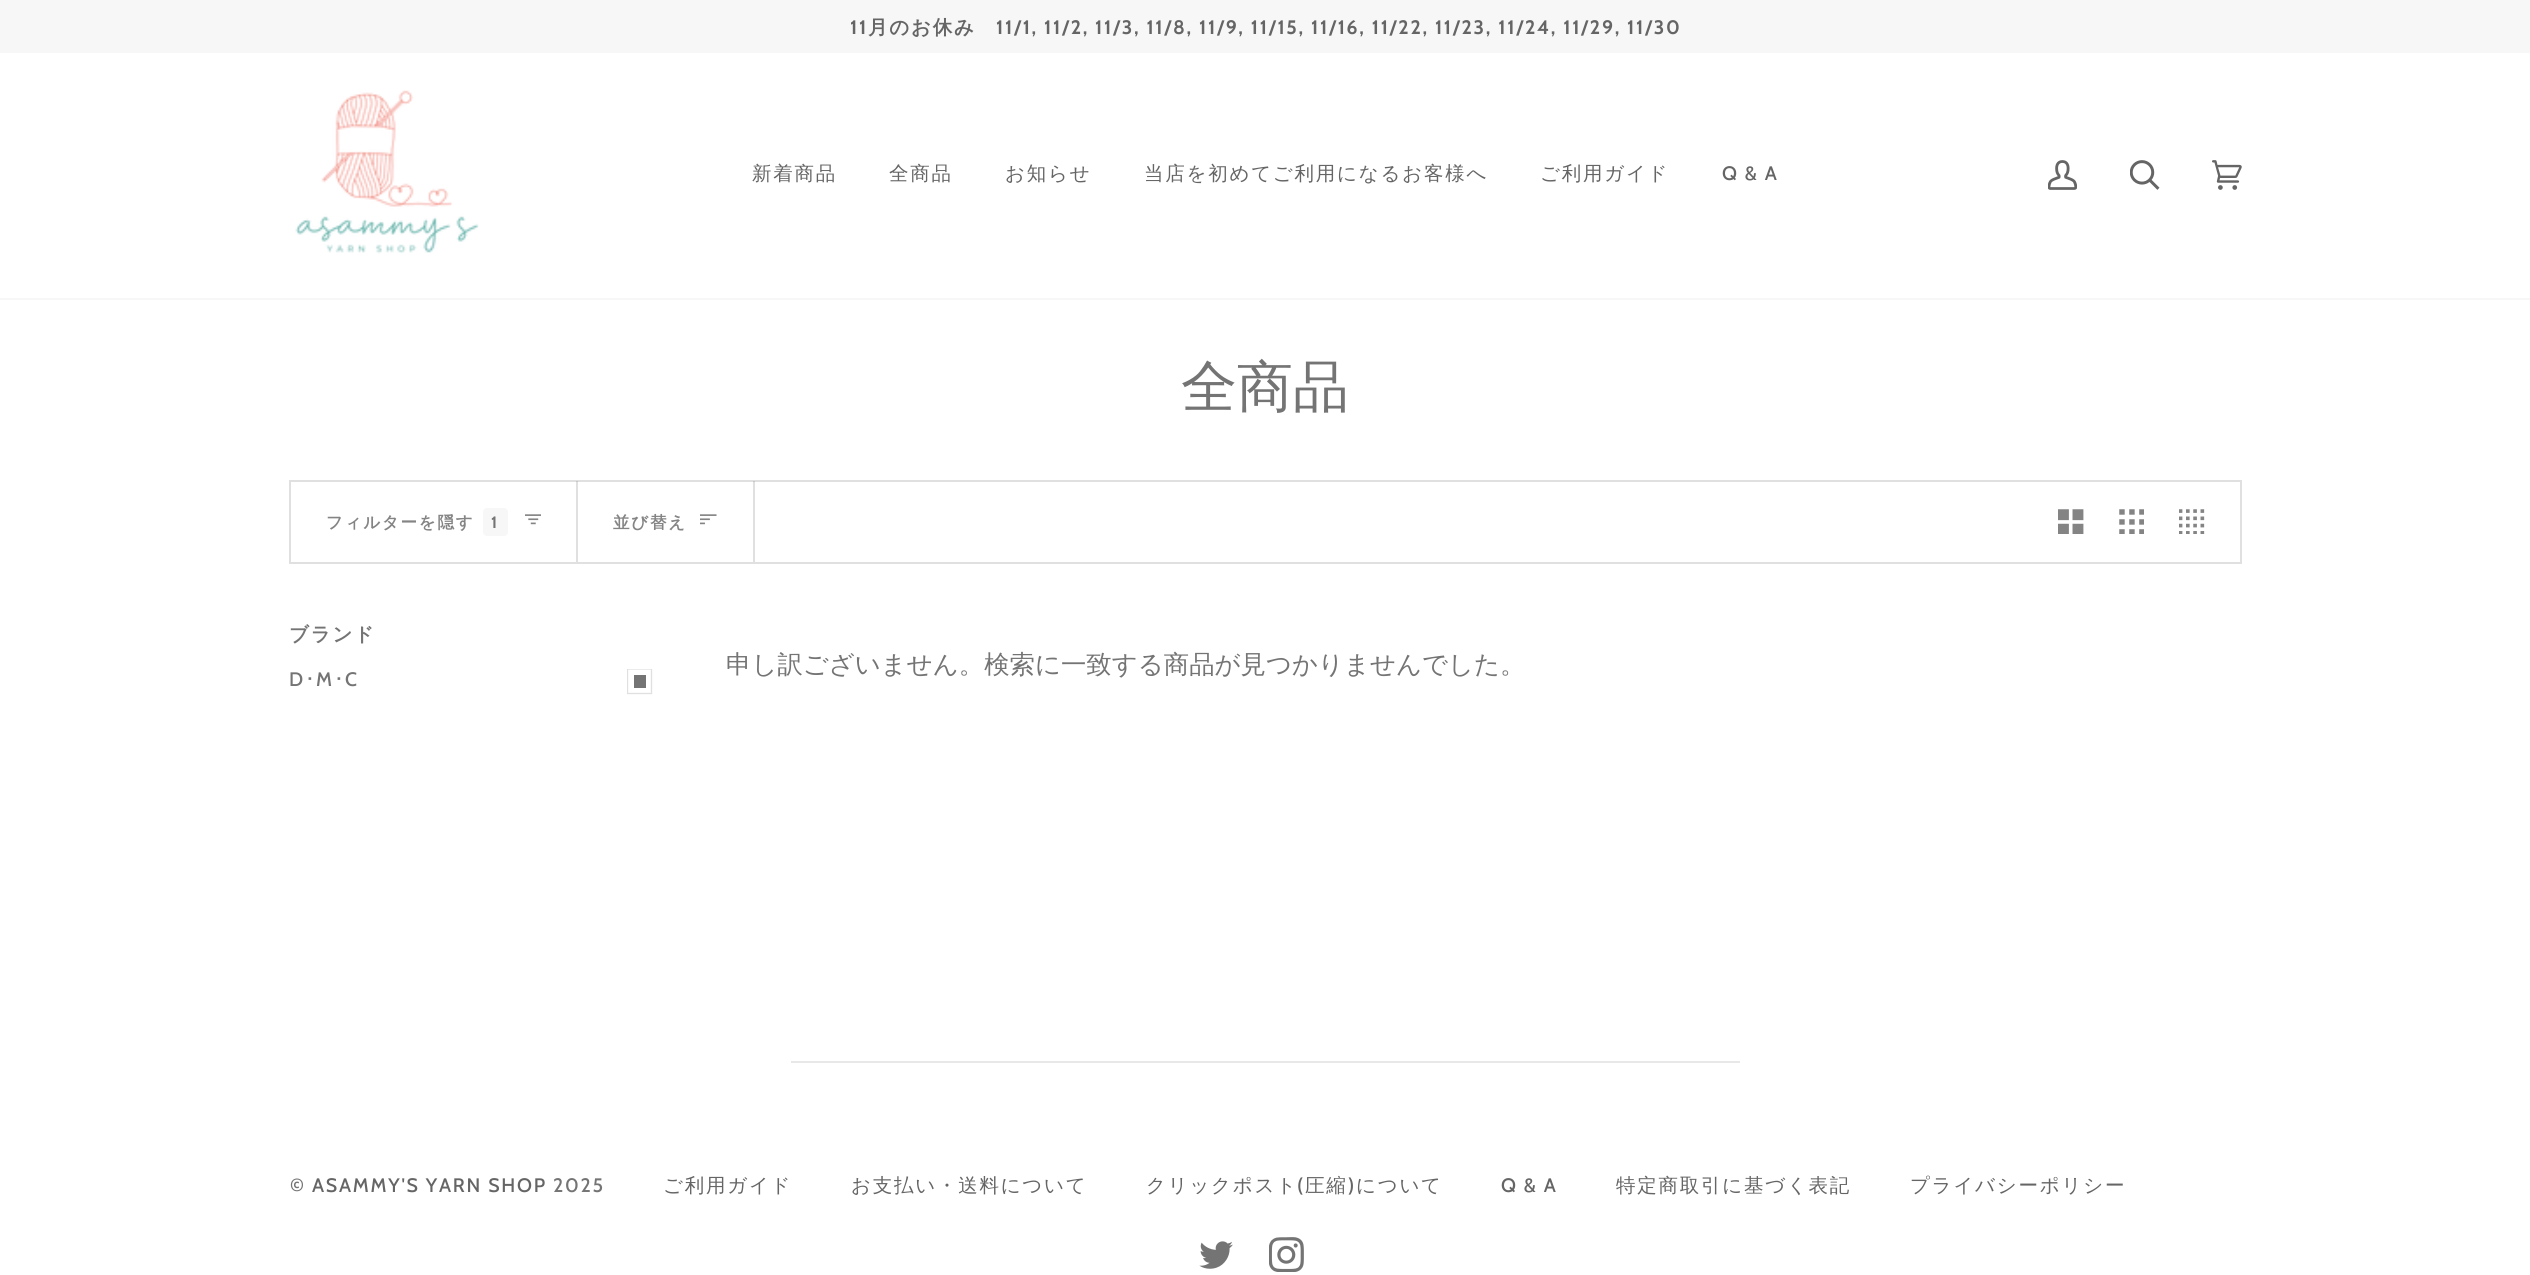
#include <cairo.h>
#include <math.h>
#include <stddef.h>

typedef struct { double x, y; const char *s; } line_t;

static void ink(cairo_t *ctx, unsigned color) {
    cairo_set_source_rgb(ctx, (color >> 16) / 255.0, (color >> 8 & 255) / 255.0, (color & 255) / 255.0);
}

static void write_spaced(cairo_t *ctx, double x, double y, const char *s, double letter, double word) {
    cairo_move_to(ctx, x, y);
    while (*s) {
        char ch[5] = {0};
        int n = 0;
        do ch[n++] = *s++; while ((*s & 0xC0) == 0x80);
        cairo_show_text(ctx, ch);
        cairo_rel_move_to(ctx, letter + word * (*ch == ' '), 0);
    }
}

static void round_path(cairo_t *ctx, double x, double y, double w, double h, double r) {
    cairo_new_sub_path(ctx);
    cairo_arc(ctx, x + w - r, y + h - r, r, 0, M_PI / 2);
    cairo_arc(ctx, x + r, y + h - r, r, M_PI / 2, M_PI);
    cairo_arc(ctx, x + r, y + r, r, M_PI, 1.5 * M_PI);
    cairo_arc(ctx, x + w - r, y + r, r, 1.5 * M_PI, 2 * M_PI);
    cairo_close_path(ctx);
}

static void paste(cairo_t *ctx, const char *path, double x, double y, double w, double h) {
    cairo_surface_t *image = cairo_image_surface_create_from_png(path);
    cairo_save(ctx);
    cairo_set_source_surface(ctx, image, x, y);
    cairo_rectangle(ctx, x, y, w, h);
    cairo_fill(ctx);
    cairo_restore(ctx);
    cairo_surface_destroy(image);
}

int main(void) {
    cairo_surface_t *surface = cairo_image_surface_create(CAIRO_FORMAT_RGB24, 2530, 1275);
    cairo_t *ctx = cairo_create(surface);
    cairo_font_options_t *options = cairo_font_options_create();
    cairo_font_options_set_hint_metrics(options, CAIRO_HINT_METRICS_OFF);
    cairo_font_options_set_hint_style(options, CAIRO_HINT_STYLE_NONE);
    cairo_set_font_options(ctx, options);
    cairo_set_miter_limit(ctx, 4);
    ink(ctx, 0xFFFFFF);
    cairo_paint(ctx);
    ink(ctx, 0xF7F7F7);
    cairo_rectangle(ctx, 0, 0, 2530, 53);
    cairo_fill(ctx);
    cairo_save(ctx);
    cairo_rectangle(ctx, 851, 5, 829, 42);
    cairo_clip(ctx);
    cairo_select_font_face(ctx, "Cabin", CAIRO_FONT_SLANT_NORMAL, CAIRO_FONT_WEIGHT_BOLD);
    cairo_set_font_size(ctx, 19.5);
    ink(ctx, 0x656565);
    write_spaced(ctx, 850, 34, "11", 1.75, 0);
    cairo_restore(ctx);
    cairo_select_font_face(ctx, "WenQuanYi Zen Hei", CAIRO_FONT_SLANT_NORMAL, CAIRO_FONT_WEIGHT_BOLD);
    cairo_set_font_size(ctx, 19.5);
    ink(ctx, 0x656565);
    write_spaced(ctx, 868, 34, "月のお休み", 1.75, 0);
    cairo_select_font_face(ctx, "Cabin", CAIRO_FONT_SLANT_NORMAL, CAIRO_FONT_WEIGHT_BOLD);
    write_spaced(ctx, 996, 34, "11/1, 11/2, 11/3, 11/8, 11/9, 11/15, 11/16, 11/22, 11/23, 11/24, 11/29, 11/30", 1.75, 0);
    ink(ctx, 0xF7F7F7);
    cairo_rectangle(ctx, 0, 298, 2530, 2);
    cairo_fill(ctx);
    paste(ctx, "media/1.png", 295, 90, 184, 164);
    cairo_select_font_face(ctx, "WenQuanYi Zen Hei Medium", CAIRO_FONT_SLANT_NORMAL, CAIRO_FONT_WEIGHT_NORMAL);
    ink(ctx, 0x656565);
    {
        static const line_t items[] = {
            {752, 180, "新着商品"},
            {889, 180, "全商品"},
            {1005, 180, "お知らせ"},
            {1144, 180, "当店を初めてご利用になるお客様へ"},
            {1540, 180, "ご利用ガイド"},
        };
        for (size_t i = 0; i < sizeof items / sizeof *items; i++) {
            write_spaced(ctx, items[i].x, items[i].y, items[i].s, 1.75, 0);
        }
    }
    cairo_select_font_face(ctx, "Cabin Medium", CAIRO_FONT_SLANT_NORMAL, CAIRO_FONT_WEIGHT_NORMAL);
    write_spaced(ctx, 1722, 180, "Q & A", 1.75, 0);
    paste(ctx, "media/2.png", 2048, 160, 29, 30);
    paste(ctx, "media/3.png", 2130, 160, 30, 30);
    paste(ctx, "media/4.png", 2212, 160, 30, 30);
    cairo_select_font_face(ctx, "WenQuanYi Zen Hei Medium", CAIRO_FONT_SLANT_NORMAL, CAIRO_FONT_WEIGHT_NORMAL);
    cairo_set_font_size(ctx, 56);
    ink(ctx, 0x747474);
    cairo_move_to(ctx, 1181, 406);
    cairo_show_text(ctx, "全商品");
    cairo_rectangle(ctx, 290, 481, 1951, 82);
    ink(ctx, 0xE0E0E0);
    cairo_stroke(ctx);
    cairo_set_source_rgba(ctx, 0.396, 0.396, 0.396, 0.2);
    cairo_rectangle(ctx, 576, 481, 2, 81);
    cairo_fill(ctx);
    cairo_select_font_face(ctx, "WenQuanYi Zen Hei", CAIRO_FONT_SLANT_NORMAL, CAIRO_FONT_WEIGHT_BOLD);
    cairo_set_font_size(ctx, 16.5);
    ink(ctx, 0x848484);
    write_spaced(ctx, 326, 528, "フィルターを隠す", 1.75, 0);
    ink(ctx, 0xF7F7F7);
    round_path(ctx, 483, 508, 25, 28, 4);
    cairo_fill(ctx);
    cairo_select_font_face(ctx, "Cabin", CAIRO_FONT_SLANT_NORMAL, CAIRO_FONT_WEIGHT_BOLD);
    ink(ctx, 0x747474);
    write_spaced(ctx, 491, 528, "1", 1.75, 0);
    paste(ctx, "media/5.png", 525, 514, 16, 11);
    cairo_set_source_rgba(ctx, 0.396, 0.396, 0.396, 0.2);
    cairo_rectangle(ctx, 753, 481, 2, 81);
    cairo_fill(ctx);
    cairo_select_font_face(ctx, "WenQuanYi Zen Hei", CAIRO_FONT_SLANT_NORMAL, CAIRO_FONT_WEIGHT_BOLD);
    ink(ctx, 0x848484);
    write_spaced(ctx, 613, 528, "並び替え", 1.75, 0);
    paste(ctx, "media/6.png", 700, 514, 17, 11);
    paste(ctx, "media/7.png", 2058, 509, 26, 25);
    paste(ctx, "media/8.png", 2119, 509, 25, 25);
    paste(ctx, "media/9.png", 2179, 509, 26, 25);
    cairo_set_font_size(ctx, 19.5);
    ink(ctx, 0x747474);
    write_spaced(ctx, 289, 641, "ブランド", 1.75, 0);
    cairo_select_font_face(ctx, "Cabin Medium", CAIRO_FONT_SLANT_NORMAL, CAIRO_FONT_WEIGHT_NORMAL);
    write_spaced(ctx, 289, 686, "D", 1.75, 0);
    cairo_select_font_face(ctx, "IPAPGothic", CAIRO_FONT_SLANT_NORMAL, CAIRO_FONT_WEIGHT_NORMAL);
    write_spaced(ctx, 305, 686, "･", 1.75, 0);
    cairo_select_font_face(ctx, "Cabin Medium", CAIRO_FONT_SLANT_NORMAL, CAIRO_FONT_WEIGHT_NORMAL);
    write_spaced(ctx, 316, 686, "M", 1.75, 0);
    cairo_select_font_face(ctx, "IPAPGothic", CAIRO_FONT_SLANT_NORMAL, CAIRO_FONT_WEIGHT_NORMAL);
    write_spaced(ctx, 334, 686, "･", 1.75, 0);
    cairo_select_font_face(ctx, "Cabin Medium", CAIRO_FONT_SLANT_NORMAL, CAIRO_FONT_WEIGHT_NORMAL);
    write_spaced(ctx, 345, 686, "C", 1.75, 0);
    cairo_save(ctx);
    cairo_rectangle(ctx, 627, 669, 26, 26);
    cairo_clip(ctx);
    cairo_new_path(ctx);
    cairo_move_to(ctx, 627.5, 669);
    cairo_line_to(ctx, 651.5, 669);
    cairo_line_to(ctx, 651.5, 693.5);
    cairo_line_to(ctx, 627.5, 693.5);
    cairo_close_path(ctx);
    ink(ctx, 0xE0E0E0);
    cairo_set_line_width(ctx, 1.3);
    cairo_stroke(ctx);
    cairo_restore(ctx);
    cairo_rectangle(ctx, 634, 675, 12, 13);
    cairo_fill(ctx);
    cairo_select_font_face(ctx, "WenQuanYi Zen Hei Medium", CAIRO_FONT_SLANT_NORMAL, CAIRO_FONT_WEIGHT_NORMAL);
    cairo_set_font_size(ctx, 25.4);
    cairo_move_to(ctx, 726, 673);
    cairo_show_text(ctx, "申し訳ございません。検索に一致する商品が見つかりませんでした。");
    ink(ctx, 0xE8E8E8);
    cairo_rectangle(ctx, 791, 1061, 949, 2);
    cairo_fill(ctx);
    cairo_select_font_face(ctx, "Cabin Medium", CAIRO_FONT_SLANT_NORMAL, CAIRO_FONT_WEIGHT_NORMAL);
    cairo_set_font_size(ctx, 19.5);
    ink(ctx, 0x747474);
    write_spaced(ctx, 290, 1192, "©", 1.75, 0);
    ink(ctx, 0x656565);
    write_spaced(ctx, 312, 1192, "ASAMMY'S YARN SHOP", 1.75, 0);
    ink(ctx, 0x747474);
    write_spaced(ctx, 553, 1192, "2025", 1.75, 0);
    cairo_select_font_face(ctx, "WenQuanYi Zen Hei Medium", CAIRO_FONT_SLANT_NORMAL, CAIRO_FONT_WEIGHT_NORMAL);
    ink(ctx, 0x656565);
    {
        static const line_t items[] = {
            {663, 1192, "ご利用ガイド"},
            {851, 1192, "お支払い・送料について"},
            {1146, 1192, "クリックポスト"},
        };
        for (size_t i = 0; i < sizeof items / sizeof *items; i++) {
            write_spaced(ctx, items[i].x, items[i].y, items[i].s, 1.75, 0);
        }
    }
    cairo_select_font_face(ctx, "Cabin Medium", CAIRO_FONT_SLANT_NORMAL, CAIRO_FONT_WEIGHT_NORMAL);
    write_spaced(ctx, 1297, 1192, "(", 1.75, 0);
    cairo_select_font_face(ctx, "WenQuanYi Zen Hei Medium", CAIRO_FONT_SLANT_NORMAL, CAIRO_FONT_WEIGHT_NORMAL);
    write_spaced(ctx, 1305, 1192, "圧縮", 1.75, 0);
    cairo_select_font_face(ctx, "Cabin Medium", CAIRO_FONT_SLANT_NORMAL, CAIRO_FONT_WEIGHT_NORMAL);
    write_spaced(ctx, 1348, 1192, ")", 1.75, 0);
    cairo_select_font_face(ctx, "WenQuanYi Zen Hei Medium", CAIRO_FONT_SLANT_NORMAL, CAIRO_FONT_WEIGHT_NORMAL);
    write_spaced(ctx, 1356, 1192, "について", 1.75, 0);
    cairo_select_font_face(ctx, "Cabin Medium", CAIRO_FONT_SLANT_NORMAL, CAIRO_FONT_WEIGHT_NORMAL);
    write_spaced(ctx, 1501, 1192, "Q & A", 1.75, 0);
    cairo_select_font_face(ctx, "WenQuanYi Zen Hei Medium", CAIRO_FONT_SLANT_NORMAL, CAIRO_FONT_WEIGHT_NORMAL);
    write_spaced(ctx, 1616, 1192, "特定商取引に基づく表記", 1.75, 0);
    write_spaced(ctx, 1910, 1192, "プライバシーポリシー", 1.75, 0);
    paste(ctx, "media/10.png", 1199, 1241, 34, 28);
    paste(ctx, "media/11.png", 1269, 1237, 35, 35);
    cairo_surface_write_to_png(surface, "image.png");
    cairo_font_options_destroy(options);
    cairo_destroy(ctx);
    cairo_surface_destroy(surface);
    return 0;
}
